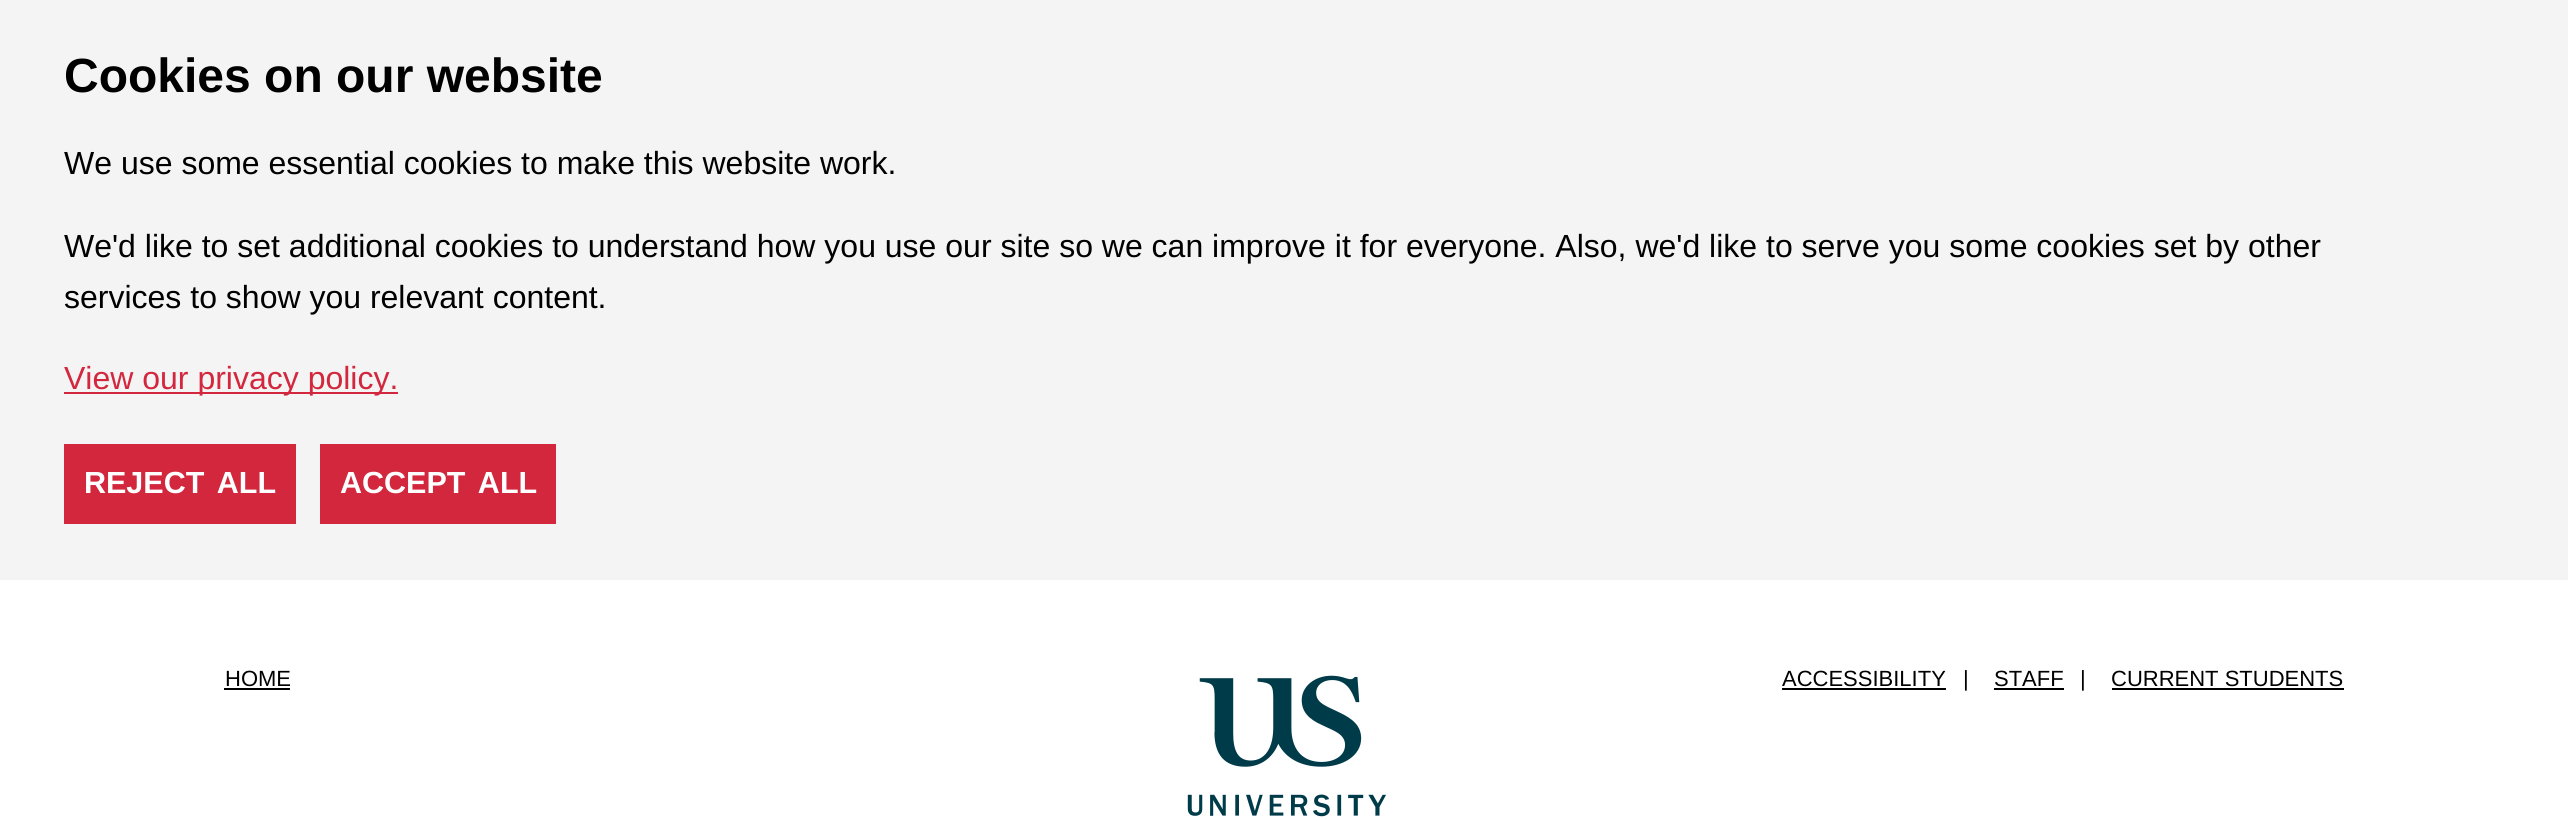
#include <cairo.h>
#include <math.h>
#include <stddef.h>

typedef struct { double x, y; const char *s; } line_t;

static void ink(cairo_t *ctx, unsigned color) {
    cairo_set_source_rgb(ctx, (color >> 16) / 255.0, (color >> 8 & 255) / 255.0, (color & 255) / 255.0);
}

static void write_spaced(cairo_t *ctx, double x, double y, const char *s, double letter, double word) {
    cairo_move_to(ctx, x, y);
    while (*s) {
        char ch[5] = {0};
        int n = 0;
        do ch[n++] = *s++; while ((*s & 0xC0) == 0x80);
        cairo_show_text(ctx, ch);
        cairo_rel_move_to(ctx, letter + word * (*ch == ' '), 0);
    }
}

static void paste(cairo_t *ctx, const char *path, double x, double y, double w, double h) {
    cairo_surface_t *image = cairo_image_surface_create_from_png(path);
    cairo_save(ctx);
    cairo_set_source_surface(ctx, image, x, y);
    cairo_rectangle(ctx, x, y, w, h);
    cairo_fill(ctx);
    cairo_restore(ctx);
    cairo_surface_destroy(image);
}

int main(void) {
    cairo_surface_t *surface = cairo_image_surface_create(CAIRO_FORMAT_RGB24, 2568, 821);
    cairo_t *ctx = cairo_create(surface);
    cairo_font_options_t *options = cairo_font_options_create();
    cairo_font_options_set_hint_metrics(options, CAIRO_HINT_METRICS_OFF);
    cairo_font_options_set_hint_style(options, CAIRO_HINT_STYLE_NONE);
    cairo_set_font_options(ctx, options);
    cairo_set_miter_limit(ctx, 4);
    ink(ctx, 0xFFFFFF);
    cairo_paint(ctx);
    ink(ctx, 0xF4F4F4);
    cairo_rectangle(ctx, 0, 0, 2568, 580);
    cairo_fill(ctx);
    cairo_select_font_face(ctx, "Liberation Sans", CAIRO_FONT_SLANT_NORMAL, CAIRO_FONT_WEIGHT_BOLD);
    cairo_set_font_size(ctx, 48);
    ink(ctx, 0x000000);
    cairo_move_to(ctx, 64, 92);
    cairo_show_text(ctx, "Cookies on our website");
    cairo_select_font_face(ctx, "Liberation Sans", CAIRO_FONT_SLANT_NORMAL, CAIRO_FONT_WEIGHT_NORMAL);
    cairo_set_font_size(ctx, 32);
    {
        static const line_t items[] = {
            {64, 174, "We use some essential cookies to make this website work."},
            {64, 257, "We'd like to set additional cookies to understand how you use our site so we can improve it for everyone. Also, we'd like to serve you some cookies set by other"},
            {64, 308, "services to show you relevant content."},
        };
        for (size_t i = 0; i < sizeof items / sizeof *items; i++) {
            cairo_move_to(ctx, items[i].x, items[i].y);
            cairo_show_text(ctx, items[i].s);
        }
    }
    ink(ctx, 0xD3273E);
    cairo_rectangle(ctx, 64, 392, 334, 2);
    cairo_fill(ctx);
    cairo_move_to(ctx, 64, 389);
    cairo_show_text(ctx, "View our privacy policy.");
    cairo_rectangle(ctx, 64, 444, 232, 80);
    cairo_fill(ctx);
    cairo_select_font_face(ctx, "Liberation Sans", CAIRO_FONT_SLANT_NORMAL, CAIRO_FONT_WEIGHT_BOLD);
    cairo_set_font_size(ctx, 30.5);
    ink(ctx, 0xFFFFFF);
    write_spaced(ctx, 84, 493, "REJECT ALL", 0, 4);
    ink(ctx, 0xD3273E);
    cairo_rectangle(ctx, 320, 444, 236, 80);
    cairo_fill(ctx);
    ink(ctx, 0xFFFFFF);
    write_spaced(ctx, 340, 493, "ACCEPT ALL", 0, 4);
    cairo_select_font_face(ctx, "Liberation Sans", CAIRO_FONT_SLANT_NORMAL, CAIRO_FONT_WEIGHT_NORMAL);
    cairo_set_font_size(ctx, 22);
    ink(ctx, 0x000000);
    cairo_move_to(ctx, 225, 686);
    cairo_show_text(ctx, "HOME");
    cairo_rectangle(ctx, 224, 688, 66, 2);
    cairo_fill(ctx);
    cairo_move_to(ctx, 1782, 686);
    cairo_show_text(ctx, "ACCESSIBILITY");
    cairo_rectangle(ctx, 1782, 688, 164, 2);
    cairo_fill(ctx);
    cairo_move_to(ctx, 1963, 686);
    cairo_show_text(ctx, "|");
    cairo_move_to(ctx, 1994, 686);
    cairo_show_text(ctx, "STAFF");
    cairo_rectangle(ctx, 1994, 688, 70, 2);
    cairo_fill(ctx);
    cairo_move_to(ctx, 2080, 686);
    cairo_show_text(ctx, "|");
    cairo_move_to(ctx, 2111, 686);
    cairo_show_text(ctx, "CURRENT STUDENTS");
    cairo_rectangle(ctx, 2112, 688, 232, 2);
    cairo_fill(ctx);
    paste(ctx, "media/1.png", 1187, 675, 199, 142);
    cairo_surface_write_to_png(surface, "image.png");
    cairo_font_options_destroy(options);
    cairo_destroy(ctx);
    cairo_surface_destroy(surface);
    return 0;
}
